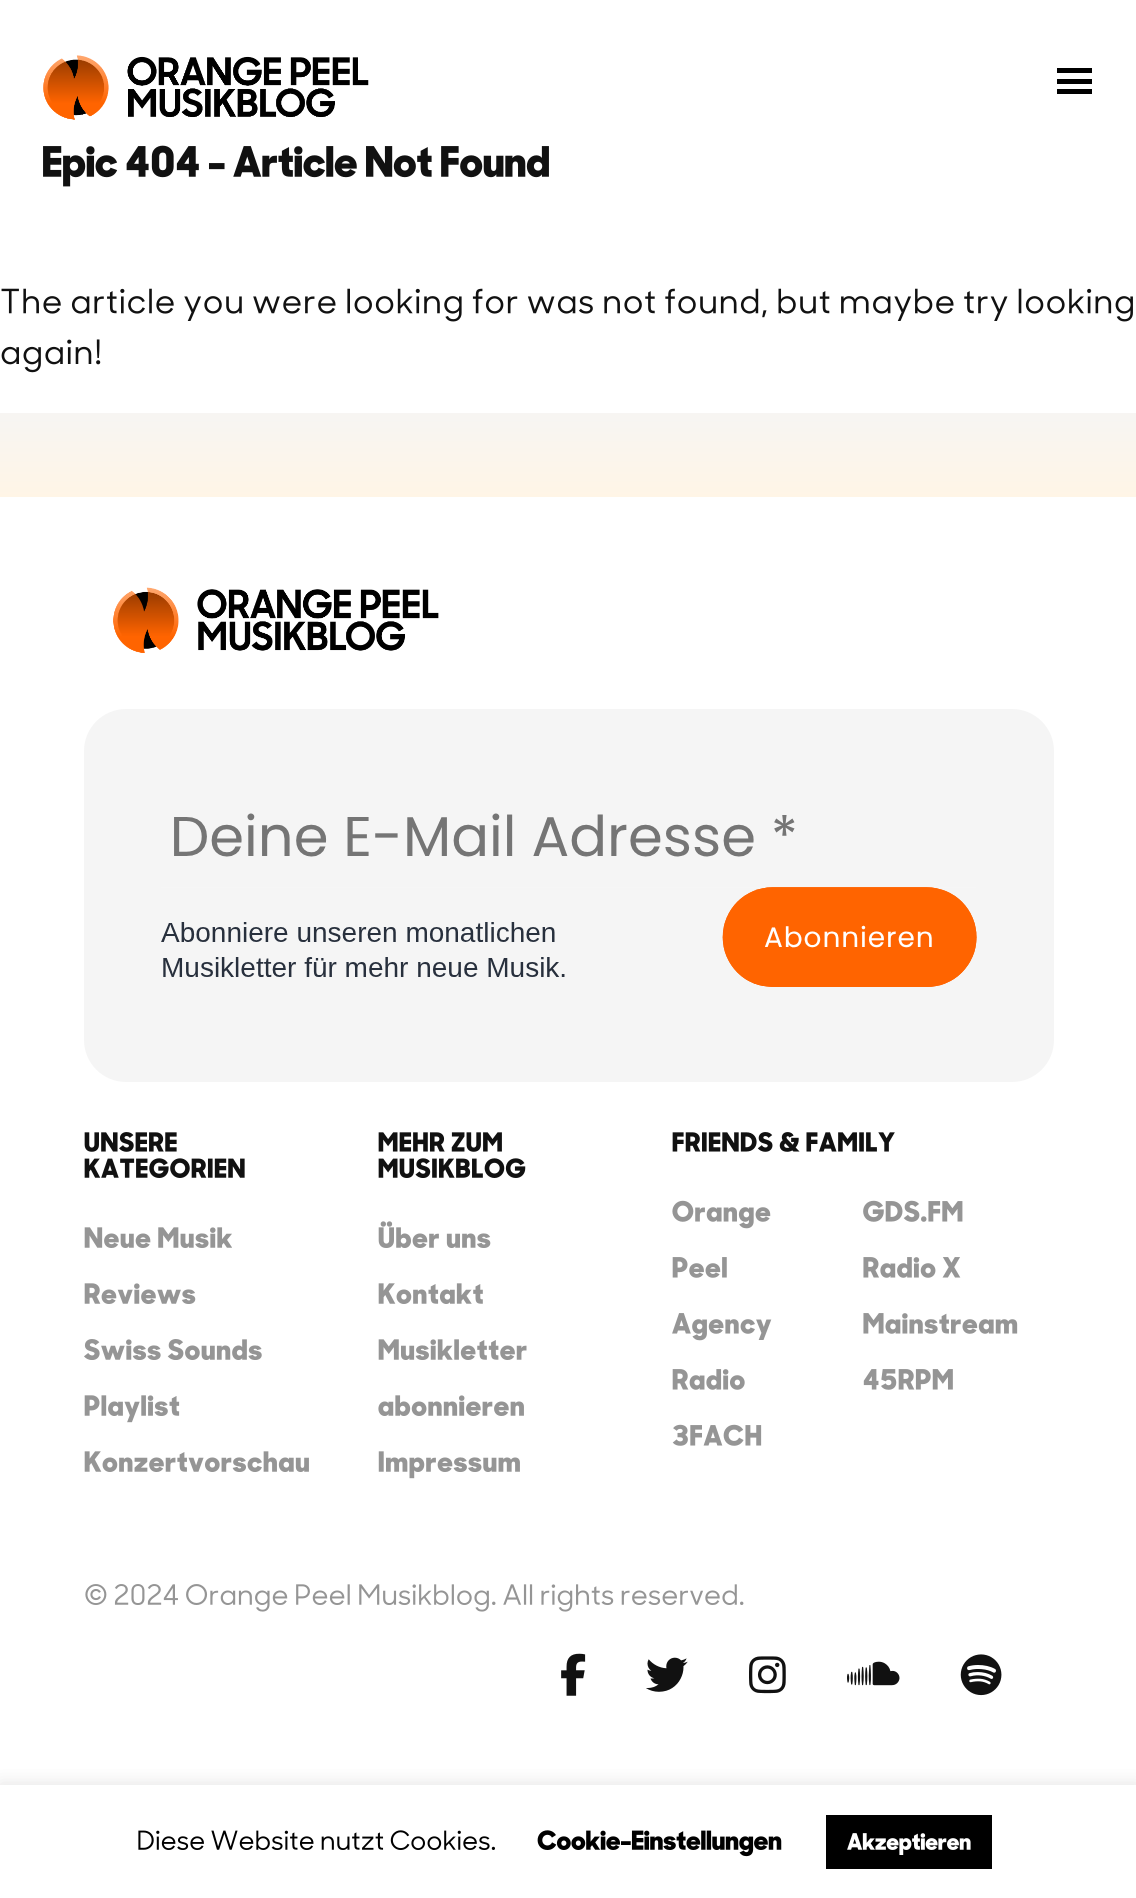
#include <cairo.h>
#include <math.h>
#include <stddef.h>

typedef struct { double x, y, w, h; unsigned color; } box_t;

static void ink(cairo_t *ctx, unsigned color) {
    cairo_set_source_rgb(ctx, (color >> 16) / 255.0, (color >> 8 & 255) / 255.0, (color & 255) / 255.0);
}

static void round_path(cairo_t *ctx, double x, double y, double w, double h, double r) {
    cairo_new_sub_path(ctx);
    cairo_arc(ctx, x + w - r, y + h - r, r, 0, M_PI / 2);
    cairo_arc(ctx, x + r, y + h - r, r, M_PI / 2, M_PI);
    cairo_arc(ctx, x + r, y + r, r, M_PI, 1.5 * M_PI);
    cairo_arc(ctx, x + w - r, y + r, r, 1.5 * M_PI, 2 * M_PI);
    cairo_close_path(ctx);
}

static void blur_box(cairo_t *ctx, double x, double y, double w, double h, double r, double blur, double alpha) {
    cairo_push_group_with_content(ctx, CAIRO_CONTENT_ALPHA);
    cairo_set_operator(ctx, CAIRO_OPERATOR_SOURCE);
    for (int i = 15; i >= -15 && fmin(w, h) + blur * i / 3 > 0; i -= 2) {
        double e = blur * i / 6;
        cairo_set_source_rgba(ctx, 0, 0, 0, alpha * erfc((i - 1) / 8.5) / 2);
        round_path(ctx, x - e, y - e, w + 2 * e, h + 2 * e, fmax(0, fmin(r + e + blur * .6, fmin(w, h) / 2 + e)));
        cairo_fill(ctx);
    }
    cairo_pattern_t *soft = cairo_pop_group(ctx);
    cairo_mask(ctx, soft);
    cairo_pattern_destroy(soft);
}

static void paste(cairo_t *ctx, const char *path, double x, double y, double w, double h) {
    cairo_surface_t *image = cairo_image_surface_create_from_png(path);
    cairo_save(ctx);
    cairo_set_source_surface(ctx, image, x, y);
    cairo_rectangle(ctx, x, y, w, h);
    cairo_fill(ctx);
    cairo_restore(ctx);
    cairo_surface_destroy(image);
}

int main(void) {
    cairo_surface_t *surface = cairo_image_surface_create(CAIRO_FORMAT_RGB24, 1136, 1898);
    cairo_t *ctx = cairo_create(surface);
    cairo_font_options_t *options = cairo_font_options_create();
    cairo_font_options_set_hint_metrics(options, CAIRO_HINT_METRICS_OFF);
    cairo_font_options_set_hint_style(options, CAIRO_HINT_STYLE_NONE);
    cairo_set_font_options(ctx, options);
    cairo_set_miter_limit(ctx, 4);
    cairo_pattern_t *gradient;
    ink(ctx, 0xFFFFFF);
    cairo_paint(ctx);
    paste(ctx, "media/1.png", 43, 55, 326, 65);
    {
        static const box_t items[] = {
            {1057, 68, 35, 5, 0x000000},
            {1057, 79, 35, 5, 0x000000},
            {1057, 89, 35, 5, 0x000000},
        };
        for (size_t i = 0; i < sizeof items / sizeof *items; i++) {
            ink(ctx, items[i].color);
            cairo_rectangle(ctx, items[i].x, items[i].y, items[i].w, items[i].h);
            cairo_fill(ctx);
        }
    }
    gradient = cairo_pattern_create_linear(569, 0, 569, 497);
    cairo_pattern_add_color_stop_rgba(gradient, 0.8, 0.961, 0.961, 0.961, 1);
    cairo_pattern_add_color_stop_rgba(gradient, 1, 1, 0.961, 0.902, 1);
    cairo_set_source(ctx, gradient);
    cairo_pattern_destroy(gradient);
    cairo_rectangle(ctx, 0, 413, 1136, 84);
    cairo_fill(ctx);
    paste(ctx, "media/2.png", 43, 145, 506, 42);
    paste(ctx, "media/3.png", 1, 288, 1132, 34);
    paste(ctx, "media/4.png", 1, 339, 100, 34);
    paste(ctx, "media/5.png", 113, 587, 326, 66);
    ink(ctx, 0xF5F5F5);
    round_path(ctx, 84, 709, 970, 373, 42);
    cairo_fill(ctx);
    paste(ctx, "media/6.png", 161, 813, 816, 174);
    paste(ctx, "media/7.png", 84, 1132, 93, 20);
    paste(ctx, "media/8.png", 84, 1158, 161, 20);
    paste(ctx, "media/9.png", 84, 1227, 148, 21);
    paste(ctx, "media/10.png", 84, 1283, 112, 21);
    paste(ctx, "media/11.png", 84, 1339, 178, 21);
    paste(ctx, "media/12.png", 84, 1395, 96, 28);
    paste(ctx, "media/13.png", 84, 1451, 225, 21);
    paste(ctx, "media/14.png", 378, 1132, 124, 20);
    paste(ctx, "media/15.png", 378, 1158, 148, 20);
    paste(ctx, "media/16.png", 378, 1221, 113, 27);
    paste(ctx, "media/17.png", 378, 1283, 105, 21);
    paste(ctx, "media/18.png", 378, 1339, 149, 21);
    paste(ctx, "media/19.png", 378, 1395, 146, 21);
    paste(ctx, "media/20.png", 378, 1451, 142, 28);
    paste(ctx, "media/21.png", 672, 1132, 223, 20);
    paste(ctx, "media/22.png", 672, 1200, 99, 29);
    paste(ctx, "media/23.png", 672, 1257, 55, 21);
    paste(ctx, "media/24.png", 672, 1313, 100, 28);
    paste(ctx, "media/25.png", 863, 1200, 100, 22);
    paste(ctx, "media/26.png", 863, 1257, 98, 21);
    paste(ctx, "media/27.png", 863, 1313, 155, 21);
    paste(ctx, "media/28.png", 672, 1369, 73, 21);
    paste(ctx, "media/29.png", 672, 1424, 90, 22);
    paste(ctx, "media/30.png", 863, 1369, 90, 21);
    paste(ctx, "media/31.png", 85, 1584, 659, 28);
    paste(ctx, "media/32.png", 561, 1653, 25, 43);
    paste(ctx, "media/33.png", 646, 1657, 42, 35);
    paste(ctx, "media/34.png", 749, 1656, 37, 38);
    paste(ctx, "media/35.png", 847, 1661, 53, 25);
    paste(ctx, "media/36.png", 960, 1654, 42, 42);
    cairo_save(ctx);
    cairo_rectangle(ctx, 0, 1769, 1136, 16);
    cairo_clip(ctx);
    ink(ctx, 0xACABAB);
    blur_box(ctx, 0, 1783, 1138, 114, 0, 9, 0.3);
    cairo_restore(ctx);
    paste(ctx, "media/37.png", 138, 1830, 357, 20);
    paste(ctx, "media/38.png", 537, 1830, 245, 27);
    ink(ctx, 0x000000);
    cairo_rectangle(ctx, 826, 1815, 166, 54);
    cairo_fill(ctx);
    paste(ctx, "media/39.png", 847, 1833, 124, 22);
    cairo_surface_write_to_png(surface, "image.png");
    cairo_font_options_destroy(options);
    cairo_destroy(ctx);
    cairo_surface_destroy(surface);
    return 0;
}
